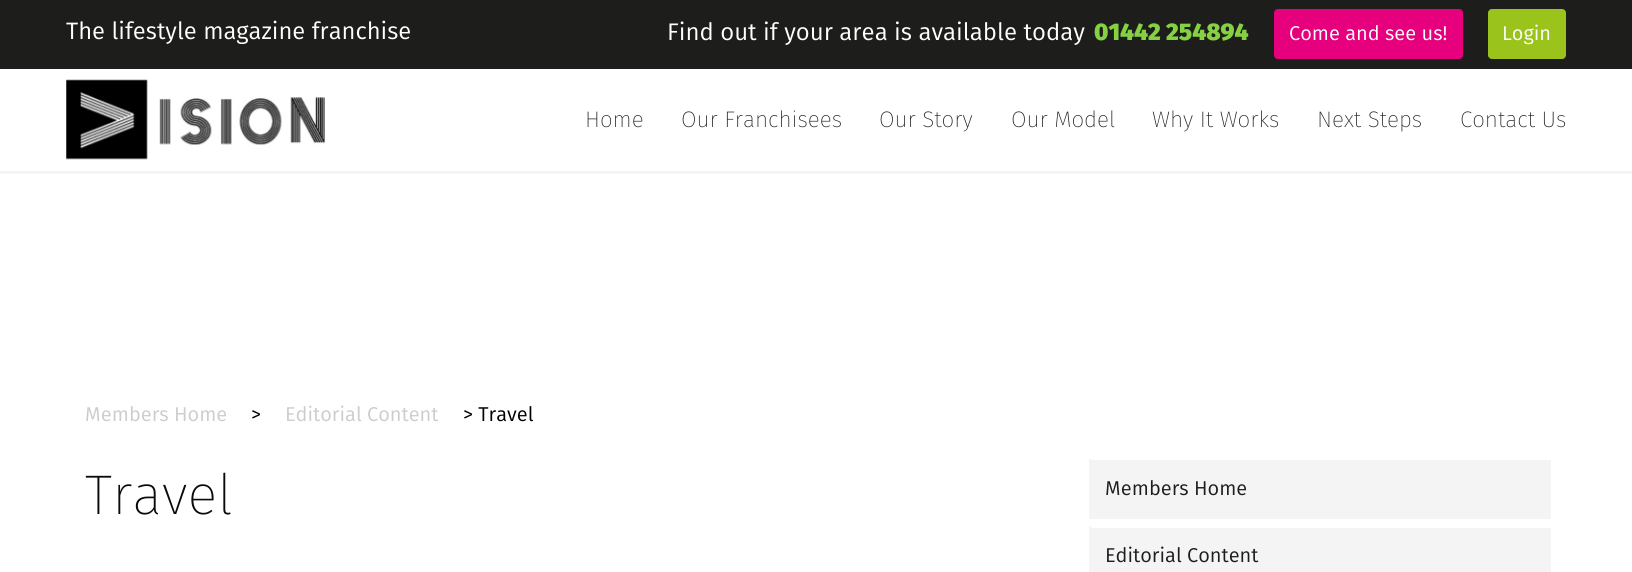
#include <cairo.h>
#include <math.h>
#include <stddef.h>

typedef struct { double x, y; const char *s; } line_t;

static void ink(cairo_t *ctx, unsigned color) {
    cairo_set_source_rgb(ctx, (color >> 16) / 255.0, (color >> 8 & 255) / 255.0, (color & 255) / 255.0);
}

static void round_path(cairo_t *ctx, double x, double y, double w, double h, double r) {
    cairo_new_sub_path(ctx);
    cairo_arc(ctx, x + w - r, y + h - r, r, 0, M_PI / 2);
    cairo_arc(ctx, x + r, y + h - r, r, M_PI / 2, M_PI);
    cairo_arc(ctx, x + r, y + r, r, M_PI, 1.5 * M_PI);
    cairo_arc(ctx, x + w - r, y + r, r, 1.5 * M_PI, 2 * M_PI);
    cairo_close_path(ctx);
}

static void blur_box(cairo_t *ctx, double x, double y, double w, double h, double r, double blur, double alpha) {
    cairo_push_group_with_content(ctx, CAIRO_CONTENT_ALPHA);
    cairo_set_operator(ctx, CAIRO_OPERATOR_SOURCE);
    for (int i = 15; i >= -15 && fmin(w, h) + blur * i / 3 > 0; i -= 2) {
        double e = blur * i / 6;
        cairo_set_source_rgba(ctx, 0, 0, 0, alpha * erfc((i - 1) / 8.5) / 2);
        round_path(ctx, x - e, y - e, w + 2 * e, h + 2 * e, fmax(0, fmin(r + e + blur * .6, fmin(w, h) / 2 + e)));
        cairo_fill(ctx);
    }
    cairo_pattern_t *soft = cairo_pop_group(ctx);
    cairo_mask(ctx, soft);
    cairo_pattern_destroy(soft);
}

static void paste(cairo_t *ctx, const char *path, double x, double y, double w, double h) {
    cairo_surface_t *image = cairo_image_surface_create_from_png(path);
    cairo_save(ctx);
    cairo_set_source_surface(ctx, image, x, y);
    cairo_rectangle(ctx, x, y, w, h);
    cairo_fill(ctx);
    cairo_restore(ctx);
    cairo_surface_destroy(image);
}

int main(void) {
    cairo_surface_t *surface = cairo_image_surface_create(CAIRO_FORMAT_RGB24, 1632, 572);
    cairo_t *ctx = cairo_create(surface);
    cairo_font_options_t *options = cairo_font_options_create();
    cairo_font_options_set_hint_metrics(options, CAIRO_HINT_METRICS_OFF);
    cairo_font_options_set_hint_style(options, CAIRO_HINT_STYLE_NONE);
    cairo_set_font_options(ctx, options);
    cairo_set_miter_limit(ctx, 4);
    ink(ctx, 0xFFFFFF);
    cairo_paint(ctx);
    cairo_save(ctx);
    cairo_rectangle(ctx, 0, 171, 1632, 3);
    cairo_clip(ctx);
    ink(ctx, 0x000000);
    blur_box(ctx, -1, 0, 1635, 174, 0, 1, 0.05);
    cairo_restore(ctx);
    ink(ctx, 0x1D1D1B);
    cairo_rectangle(ctx, 0, 0, 1632, 69);
    cairo_fill(ctx);
    cairo_select_font_face(ctx, "Fira Sans", CAIRO_FONT_SLANT_NORMAL, CAIRO_FONT_WEIGHT_NORMAL);
    cairo_set_font_size(ctx, 23.75);
    ink(ctx, 0xFFFFFF);
    cairo_move_to(ctx, 66, 39);
    cairo_show_text(ctx, "The lifestyle magazine franchise");
    cairo_set_font_size(ctx, 24);
    cairo_move_to(ctx, 667, 40);
    cairo_show_text(ctx, "Find out if your area is available today");
    cairo_select_font_face(ctx, "Fira Sans Black", CAIRO_FONT_SLANT_NORMAL, CAIRO_FONT_WEIGHT_NORMAL);
    ink(ctx, 0x86D142);
    cairo_move_to(ctx, 1094, 40);
    cairo_show_text(ctx, "01442 254894");
    ink(ctx, 0xE6007E);
    round_path(ctx, 1274, 9, 189, 50, 4);
    cairo_fill(ctx);
    cairo_select_font_face(ctx, "Fira Sans", CAIRO_FONT_SLANT_NORMAL, CAIRO_FONT_WEIGHT_NORMAL);
    cairo_set_font_size(ctx, 20);
    ink(ctx, 0xFFFFFF);
    cairo_move_to(ctx, 1289, 40);
    cairo_show_text(ctx, "Come and see us!");
    ink(ctx, 0x9AC31C);
    round_path(ctx, 1488, 9, 78, 50, 4);
    cairo_fill(ctx);
    ink(ctx, 0xFFFFFF);
    cairo_move_to(ctx, 1502, 40);
    cairo_show_text(ctx, "Login");
    paste(ctx, "media/1.png", 66, 79, 259, 81);
    cairo_select_font_face(ctx, "Fira Sans ExtraLight", CAIRO_FONT_SLANT_NORMAL, CAIRO_FONT_WEIGHT_NORMAL);
    cairo_set_font_size(ctx, 22.5);
    ink(ctx, 0x1D1D1B);
    {
        static const line_t items[] = {
            {585, 127, "Home"},
            {681, 127, "Our Franchisees"},
            {879, 127, "Our Story"},
            {1011, 127, "Our Model"},
            {1152, 127, "Why It Works"},
            {1317, 127, "Next Steps"},
            {1460, 127, "Contact Us"},
        };
        for (size_t i = 0; i < sizeof items / sizeof *items; i++) {
            cairo_move_to(ctx, items[i].x, items[i].y);
            cairo_show_text(ctx, items[i].s);
        }
    }
    cairo_select_font_face(ctx, "Fira Sans", CAIRO_FONT_SLANT_NORMAL, CAIRO_FONT_WEIGHT_NORMAL);
    cairo_set_font_size(ctx, 20);
    ink(ctx, 0xCCCCCC);
    cairo_move_to(ctx, 85, 421);
    cairo_show_text(ctx, "Members Home");
    ink(ctx, 0x000000);
    cairo_move_to(ctx, 251, 421);
    cairo_show_text(ctx, ">");
    ink(ctx, 0xCCCCCC);
    cairo_move_to(ctx, 285, 421);
    cairo_show_text(ctx, "Editorial Content");
    ink(ctx, 0x000000);
    cairo_move_to(ctx, 463, 421);
    cairo_show_text(ctx, "> Travel");
    cairo_select_font_face(ctx, "Fira Sans ExtraLight", CAIRO_FONT_SLANT_NORMAL, CAIRO_FONT_WEIGHT_NORMAL);
    cairo_set_font_size(ctx, 56);
    ink(ctx, 0x0A0A0A);
    cairo_move_to(ctx, 85, 514);
    cairo_show_text(ctx, "Travel");
    ink(ctx, 0xF4F4F4);
    cairo_rectangle(ctx, 1089, 459, 462, 60);
    cairo_fill(ctx);
    ink(ctx, 0xFFFFFF);
    cairo_new_path(ctx);
    cairo_move_to(ctx, 1089, 459);
    cairo_line_to(ctx, 1551, 459);
    cairo_line_to(ctx, 1551, 460);
    cairo_line_to(ctx, 1092, 460);
    cairo_close_path(ctx);
    cairo_fill(ctx);
    ink(ctx, 0xF4F4F4);
    cairo_new_path(ctx);
    cairo_move_to(ctx, 1089, 519);
    cairo_line_to(ctx, 1089, 459);
    cairo_line_to(ctx, 1092, 460);
    cairo_line_to(ctx, 1092, 518);
    cairo_close_path(ctx);
    cairo_fill(ctx);
    cairo_select_font_face(ctx, "Fira Sans", CAIRO_FONT_SLANT_NORMAL, CAIRO_FONT_WEIGHT_NORMAL);
    cairo_set_font_size(ctx, 20);
    ink(ctx, 0x1D1D1B);
    cairo_move_to(ctx, 1105, 495);
    cairo_show_text(ctx, "Members Home");
    ink(ctx, 0xF4F4F4);
    cairo_rectangle(ctx, 1089, 526, 462, 46);
    cairo_fill(ctx);
    ink(ctx, 0xFFFFFF);
    cairo_new_path(ctx);
    cairo_move_to(ctx, 1089, 526);
    cairo_line_to(ctx, 1551, 526);
    cairo_line_to(ctx, 1551, 528);
    cairo_line_to(ctx, 1092, 528);
    cairo_close_path(ctx);
    cairo_fill(ctx);
    ink(ctx, 0xF4F4F4);
    cairo_new_path(ctx);
    cairo_move_to(ctx, 1089, 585);
    cairo_line_to(ctx, 1089, 526);
    cairo_line_to(ctx, 1092, 528);
    cairo_line_to(ctx, 1092, 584);
    cairo_close_path(ctx);
    cairo_fill(ctx);
    ink(ctx, 0x1D1D1B);
    cairo_move_to(ctx, 1105, 562);
    cairo_show_text(ctx, "Editorial Content");
    cairo_surface_write_to_png(surface, "image.png");
    cairo_font_options_destroy(options);
    cairo_destroy(ctx);
    cairo_surface_destroy(surface);
    return 0;
}
